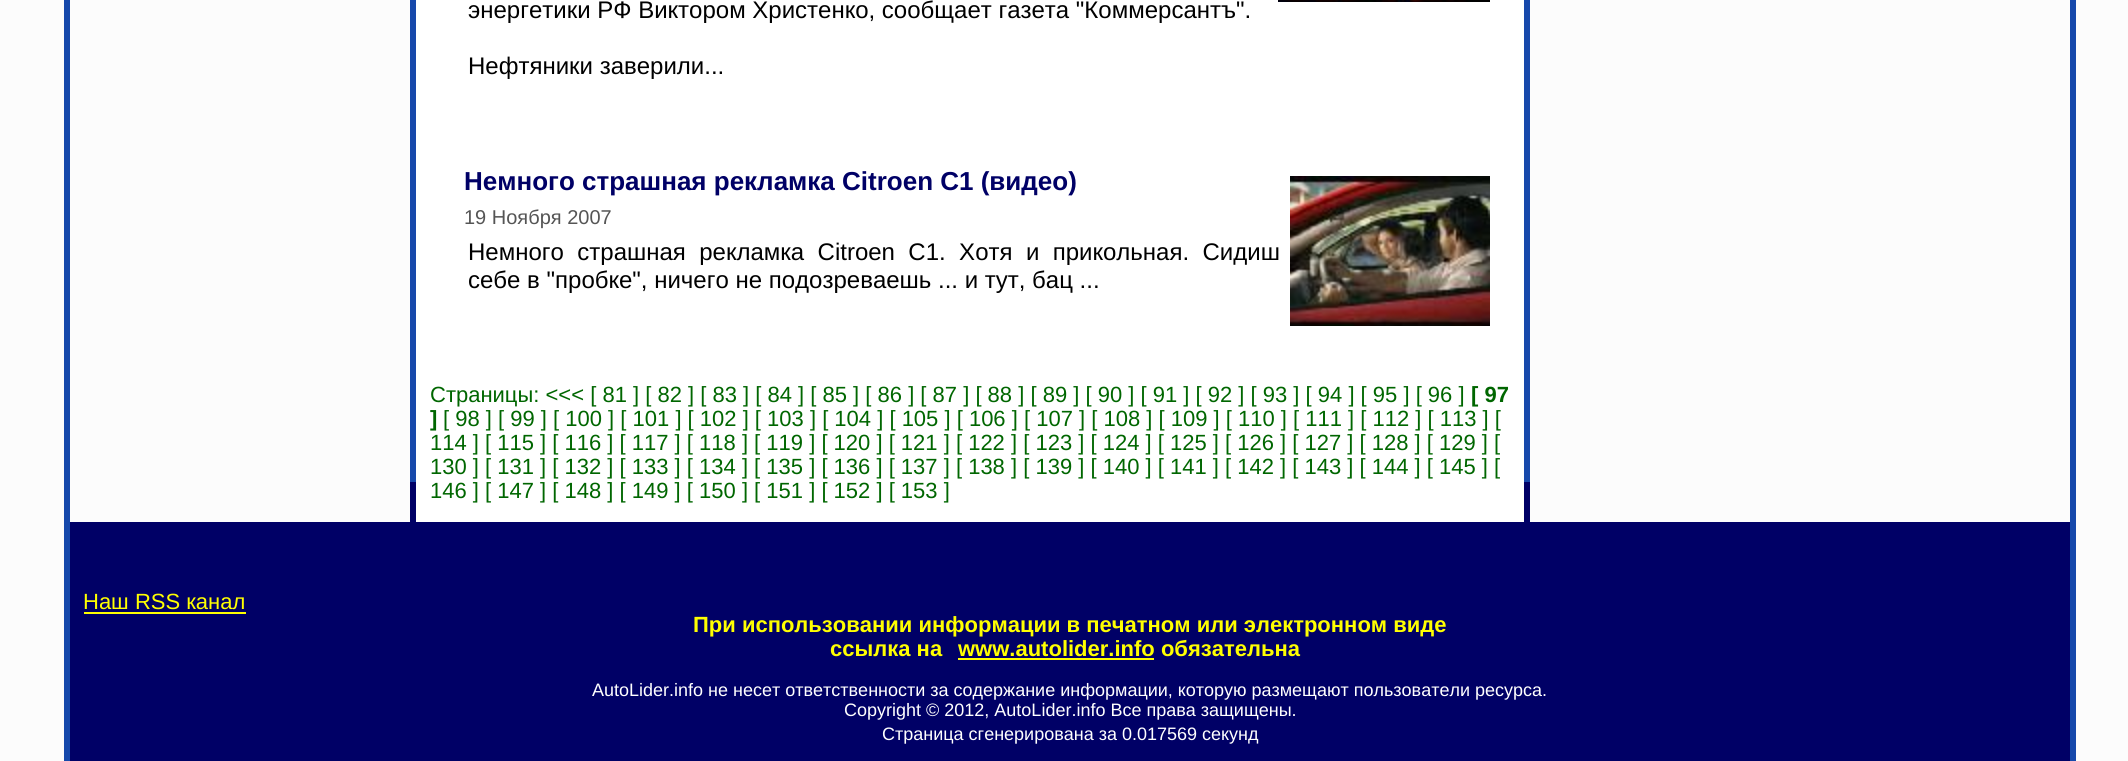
#include <cairo.h>
#include <math.h>
#include <stddef.h>

typedef struct { double x, y; const char *s; } line_t;
typedef struct { double x, y, w, h; unsigned color; } box_t;

static void ink(cairo_t *ctx, unsigned color) {
    cairo_set_source_rgb(ctx, (color >> 16) / 255.0, (color >> 8 & 255) / 255.0, (color & 255) / 255.0);
}

static void write_spaced(cairo_t *ctx, double x, double y, const char *s, double letter, double word) {
    cairo_move_to(ctx, x, y);
    while (*s) {
        char ch[5] = {0};
        int n = 0;
        do ch[n++] = *s++; while ((*s & 0xC0) == 0x80);
        cairo_show_text(ctx, ch);
        cairo_rel_move_to(ctx, letter + word * (*ch == ' '), 0);
    }
}

static void paste(cairo_t *ctx, const char *path, double x, double y, double w, double h) {
    cairo_surface_t *image = cairo_image_surface_create_from_png(path);
    cairo_save(ctx);
    cairo_set_source_surface(ctx, image, x, y);
    cairo_rectangle(ctx, x, y, w, h);
    cairo_fill(ctx);
    cairo_restore(ctx);
    cairo_surface_destroy(image);
}

int main(void) {
    cairo_surface_t *surface = cairo_image_surface_create(CAIRO_FORMAT_RGB24, 2128, 761);
    cairo_t *ctx = cairo_create(surface);
    cairo_font_options_t *options = cairo_font_options_create();
    cairo_font_options_set_hint_metrics(options, CAIRO_HINT_METRICS_OFF);
    cairo_font_options_set_hint_style(options, CAIRO_HINT_STYLE_NONE);
    cairo_set_font_options(ctx, options);
    cairo_set_miter_limit(ctx, 4);
    ink(ctx, 0xFCFCFC);
    cairo_paint(ctx);
    {
        static const box_t items[] = {
            {64, 0, 2012, 761, 0x1648AB},
            {70, 0, 340, 522, 0xFCFCFC},
            {410, 482, 1120, 40, 0x000066},
            {416, 0, 1108, 522, 0xFFFFFF},
        };
        for (size_t i = 0; i < sizeof items / sizeof *items; i++) {
            ink(ctx, items[i].color);
            cairo_rectangle(ctx, items[i].x, items[i].y, items[i].w, items[i].h);
            cairo_fill(ctx);
        }
    }
    cairo_select_font_face(ctx, "Liberation Sans", CAIRO_FONT_SLANT_NORMAL, CAIRO_FONT_WEIGHT_NORMAL);
    cairo_set_font_size(ctx, 24);
    ink(ctx, 0x000000);
    cairo_move_to(ctx, 468, 18);
    cairo_show_text(ctx, "энергетики РФ Виктором Христенко, сообщает газета \"Коммерсантъ\".");
    cairo_move_to(ctx, 468, 74);
    cairo_show_text(ctx, "Нефтяники заверили...");
    paste(ctx, "media/1.png", 1278, 0, 212, 2);
    cairo_select_font_face(ctx, "Liberation Sans", CAIRO_FONT_SLANT_NORMAL, CAIRO_FONT_WEIGHT_BOLD);
    cairo_set_font_size(ctx, 26);
    ink(ctx, 0x000066);
    cairo_move_to(ctx, 464, 190);
    cairo_show_text(ctx, "Немного страшная рекламка Citroen C1 (видео)");
    paste(ctx, "media/2.png", 1290, 176, 200, 150);
    cairo_select_font_face(ctx, "Liberation Sans", CAIRO_FONT_SLANT_NORMAL, CAIRO_FONT_WEIGHT_NORMAL);
    cairo_set_font_size(ctx, 20);
    ink(ctx, 0x555555);
    cairo_move_to(ctx, 464, 224);
    cairo_show_text(ctx, "19 Ноября 2007");
    cairo_set_font_size(ctx, 24);
    ink(ctx, 0x000000);
    write_spaced(ctx, 468, 260, "Немного страшная рекламка Citroen C1. Хотя и прикольная. Сидиш", 0, 6.75);
    cairo_move_to(ctx, 468, 288);
    cairo_show_text(ctx, "себе в \"пробке\", ничего не подозреваешь ... и тут, бац ...");
    cairo_set_font_size(ctx, 22);
    ink(ctx, 0x006600);
    cairo_move_to(ctx, 430, 402);
    cairo_show_text(ctx, "Страницы: <<< [ 81 ] [ 82 ] [ 83 ] [ 84 ] [ 85 ] [ 86 ] [ 87 ] [ 88 ] [ 89 ] [ 90 ] [ 91 ] [ 92 ] [ 93 ] [ 94 ] [ 95 ] [ 96 ]");
    cairo_select_font_face(ctx, "Liberation Sans", CAIRO_FONT_SLANT_NORMAL, CAIRO_FONT_WEIGHT_BOLD);
    cairo_move_to(ctx, 1471, 402);
    cairo_show_text(ctx, "[ 97");
    cairo_move_to(ctx, 430, 426);
    cairo_show_text(ctx, "]");
    cairo_select_font_face(ctx, "Liberation Sans", CAIRO_FONT_SLANT_NORMAL, CAIRO_FONT_WEIGHT_NORMAL);
    {
        static const line_t items[] = {
            {443, 426, "[ 98 ] [ 99 ] [ 100 ] [ 101 ] [ 102 ] [ 103 ] [ 104 ] [ 105 ] [ 106 ] [ 107 ] [ 108 ] [ 109 ] [ 110 ] [ 111 ] [ 112 ] [ 113 ] ["},
            {430, 450, "114 ] [ 115 ] [ 116 ] [ 117 ] [ 118 ] [ 119 ] [ 120 ] [ 121 ] [ 122 ] [ 123 ] [ 124 ] [ 125 ] [ 126 ] [ 127 ] [ 128 ] [ 129 ] ["},
            {430, 474, "130 ] [ 131 ] [ 132 ] [ 133 ] [ 134 ] [ 135 ] [ 136 ] [ 137 ] [ 138 ] [ 139 ] [ 140 ] [ 141 ] [ 142 ] [ 143 ] [ 144 ] [ 145 ] ["},
            {430, 498, "146 ] [ 147 ] [ 148 ] [ 149 ] [ 150 ] [ 151 ] [ 152 ] [ 153 ]"},
        };
        for (size_t i = 0; i < sizeof items / sizeof *items; i++) {
            cairo_move_to(ctx, items[i].x, items[i].y);
            cairo_show_text(ctx, items[i].s);
        }
    }
    ink(ctx, 0xFCFCFC);
    cairo_rectangle(ctx, 1530, 0, 540, 522);
    cairo_fill(ctx);
    ink(ctx, 0x000066);
    cairo_rectangle(ctx, 70, 522, 2000, 239);
    cairo_fill(ctx);
    ink(ctx, 0xFFFF00);
    cairo_move_to(ctx, 83, 609);
    cairo_show_text(ctx, "Наш RSS канал");
    cairo_rectangle(ctx, 84, 612, 162, 2);
    cairo_fill(ctx);
    cairo_select_font_face(ctx, "Liberation Sans", CAIRO_FONT_SLANT_NORMAL, CAIRO_FONT_WEIGHT_BOLD);
    {
        static const line_t items[] = {
            {693, 632, "При использовании информации в печатном или электронном виде"},
            {830, 656, "ссылка на"},
            {958, 656, "www.autolider.info обязательна"},
        };
        for (size_t i = 0; i < sizeof items / sizeof *items; i++) {
            cairo_move_to(ctx, items[i].x, items[i].y);
            cairo_show_text(ctx, items[i].s);
        }
    }
    cairo_rectangle(ctx, 958, 658, 196, 2);
    cairo_fill(ctx);
    cairo_select_font_face(ctx, "Liberation Sans", CAIRO_FONT_SLANT_NORMAL, CAIRO_FONT_WEIGHT_NORMAL);
    cairo_set_font_size(ctx, 18);
    ink(ctx, 0xFFFFFF);
    {
        static const line_t items[] = {
            {592, 696, "AutoLider.info не несет ответственности за содержание информации, которую размещают пользователи ресурса."},
            {844, 716, "Copyright © 2012, AutoLider.info Все права защищены."},
            {882, 740, "Страница сгенерирована за 0.017569 секунд"},
        };
        for (size_t i = 0; i < sizeof items / sizeof *items; i++) {
            cairo_move_to(ctx, items[i].x, items[i].y);
            cairo_show_text(ctx, items[i].s);
        }
    }
    cairo_surface_write_to_png(surface, "image.png");
    cairo_font_options_destroy(options);
    cairo_destroy(ctx);
    cairo_surface_destroy(surface);
    return 0;
}
